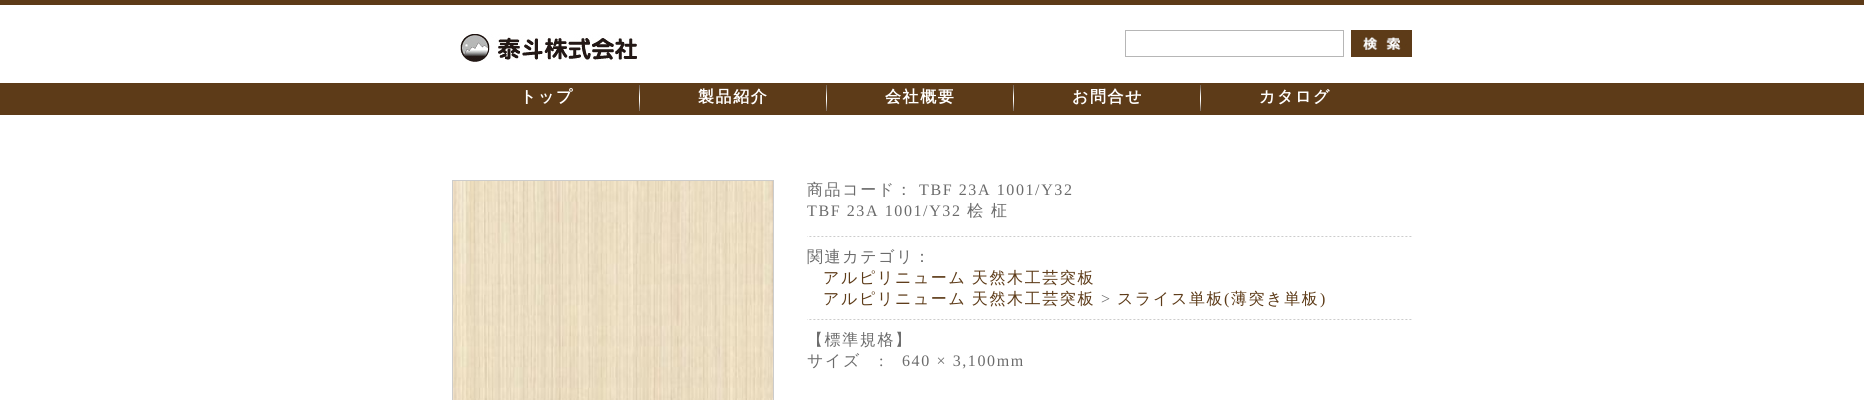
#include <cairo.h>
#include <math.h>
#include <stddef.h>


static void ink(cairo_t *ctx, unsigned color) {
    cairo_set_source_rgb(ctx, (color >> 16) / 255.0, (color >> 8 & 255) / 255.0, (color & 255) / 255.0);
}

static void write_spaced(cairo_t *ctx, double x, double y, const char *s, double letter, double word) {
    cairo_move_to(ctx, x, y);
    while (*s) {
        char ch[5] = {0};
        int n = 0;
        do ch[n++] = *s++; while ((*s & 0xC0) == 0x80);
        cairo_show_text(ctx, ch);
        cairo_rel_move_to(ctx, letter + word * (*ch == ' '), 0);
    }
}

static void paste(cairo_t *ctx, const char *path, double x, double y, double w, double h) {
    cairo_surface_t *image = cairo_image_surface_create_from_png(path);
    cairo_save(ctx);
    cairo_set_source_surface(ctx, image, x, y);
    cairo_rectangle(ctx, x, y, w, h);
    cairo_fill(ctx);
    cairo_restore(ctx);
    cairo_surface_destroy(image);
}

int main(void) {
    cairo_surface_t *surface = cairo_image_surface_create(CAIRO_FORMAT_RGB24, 1864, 400);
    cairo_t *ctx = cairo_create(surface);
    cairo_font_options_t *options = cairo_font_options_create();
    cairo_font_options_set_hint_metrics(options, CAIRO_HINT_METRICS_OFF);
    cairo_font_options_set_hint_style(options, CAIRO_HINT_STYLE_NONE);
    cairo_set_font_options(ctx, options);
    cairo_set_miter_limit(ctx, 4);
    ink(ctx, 0xFFFFFF);
    cairo_paint(ctx);
    ink(ctx, 0x5D3B18);
    cairo_rectangle(ctx, 0, 83, 1864, 32);
    cairo_fill(ctx);
    cairo_rectangle(ctx, 0, 0, 1864, 5);
    cairo_fill(ctx);
    paste(ctx, "media/1.png", 460, 34, 177, 28);
    cairo_rectangle(ctx, 1125.5, 30.5, 218, 26);
    ink(ctx, 0xB6B6B6);
    cairo_set_line_width(ctx, 1);
    cairo_stroke(ctx);
    paste(ctx, "media/2.png", 1351, 30, 61, 27);
    paste(ctx, "media/3.png", 639, 85, 1, 26);
    cairo_select_font_face(ctx, "WenQuanYi Zen Hei", CAIRO_FONT_SLANT_NORMAL, CAIRO_FONT_WEIGHT_BOLD);
    cairo_set_font_size(ctx, 16);
    ink(ctx, 0xFFFFFF);
    write_spaced(ctx, 520, 102, "トップ", 1.6, 0);
    paste(ctx, "media/3.png", 826, 85, 1, 26);
    write_spaced(ctx, 698, 102, "製品紹介", 1.6, 0);
    paste(ctx, "media/3.png", 1013, 85, 1, 26);
    write_spaced(ctx, 885, 102, "会社概要", 1.6, 0);
    paste(ctx, "media/3.png", 1200, 85, 1, 26);
    write_spaced(ctx, 1072, 102, "お問合せ", 1.6, 0);
    write_spaced(ctx, 1259, 102, "カタログ", 1.6, 0);
    cairo_rectangle(ctx, 452.5, 180.5, 321, 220);
    ink(ctx, 0xCCCCCC);
    cairo_stroke(ctx);
    paste(ctx, "media/4.png", 453, 181, 320, 219);
    cairo_select_font_face(ctx, "WenQuanYi Zen Hei Medium", CAIRO_FONT_SLANT_NORMAL, CAIRO_FONT_WEIGHT_NORMAL);
    ink(ctx, 0x6B6B6B);
    write_spaced(ctx, 807, 195, "商品コード：", 1.6, 0);
    cairo_select_font_face(ctx, "Liberation Serif", CAIRO_FONT_SLANT_NORMAL, CAIRO_FONT_WEIGHT_NORMAL);
    write_spaced(ctx, 919, 195, "TBF 23A 1001/Y32", 1.6, 0);
    paste(ctx, "media/5.png", 807, 236, 605, 1);
    write_spaced(ctx, 807, 216, "TBF 23A 1001/Y32", 1.6, 0);
    cairo_select_font_face(ctx, "WenQuanYi Zen Hei Medium", CAIRO_FONT_SLANT_NORMAL, CAIRO_FONT_WEIGHT_NORMAL);
    write_spaced(ctx, 967, 216, "桧", 1.6, 0);
    write_spaced(ctx, 991, 216, "柾", 1.6, 0);
    paste(ctx, "media/5.png", 807, 319, 605, 1);
    write_spaced(ctx, 807, 262, "関連カテゴリ：", 1.6, 0);
    ink(ctx, 0x5D3B18);
    write_spaced(ctx, 823, 283, "アルピリニューム 天然木工芸突板", 1.6, -1);
    write_spaced(ctx, 823, 304, "アルピリニューム 天然木工芸突板", 1.6, -1);
    cairo_select_font_face(ctx, "Liberation Serif", CAIRO_FONT_SLANT_NORMAL, CAIRO_FONT_WEIGHT_NORMAL);
    ink(ctx, 0x6B6B6B);
    write_spaced(ctx, 1101, 304, ">", 1.6, 0);
    cairo_select_font_face(ctx, "WenQuanYi Zen Hei Medium", CAIRO_FONT_SLANT_NORMAL, CAIRO_FONT_WEIGHT_NORMAL);
    ink(ctx, 0x5D3B18);
    write_spaced(ctx, 1117, 304, "スライス単板", 1.6, 0);
    cairo_select_font_face(ctx, "Liberation Serif", CAIRO_FONT_SLANT_NORMAL, CAIRO_FONT_WEIGHT_NORMAL);
    write_spaced(ctx, 1224, 304, "(", 1.6, 0);
    cairo_select_font_face(ctx, "WenQuanYi Zen Hei Medium", CAIRO_FONT_SLANT_NORMAL, CAIRO_FONT_WEIGHT_NORMAL);
    write_spaced(ctx, 1231, 304, "薄突き単板", 1.6, 0);
    cairo_select_font_face(ctx, "Liberation Serif", CAIRO_FONT_SLANT_NORMAL, CAIRO_FONT_WEIGHT_NORMAL);
    write_spaced(ctx, 1320, 304, ")", 1.6, 0);
    cairo_select_font_face(ctx, "WenQuanYi Zen Hei Medium", CAIRO_FONT_SLANT_NORMAL, CAIRO_FONT_WEIGHT_NORMAL);
    ink(ctx, 0x6B6B6B);
    write_spaced(ctx, 807, 345, "【標準規格】", 1.6, 0);
    write_spaced(ctx, 807, 366, "サイズ", 1.6, 0);
    cairo_select_font_face(ctx, "Liberation Serif", CAIRO_FONT_SLANT_NORMAL, CAIRO_FONT_WEIGHT_NORMAL);
    write_spaced(ctx, 879, 366, ":", 1.6, 0);
    write_spaced(ctx, 902, 366, "640 × 3,100mm", 1.6, 0);
    cairo_surface_write_to_png(surface, "image.png");
    cairo_font_options_destroy(options);
    cairo_destroy(ctx);
    cairo_surface_destroy(surface);
    return 0;
}
